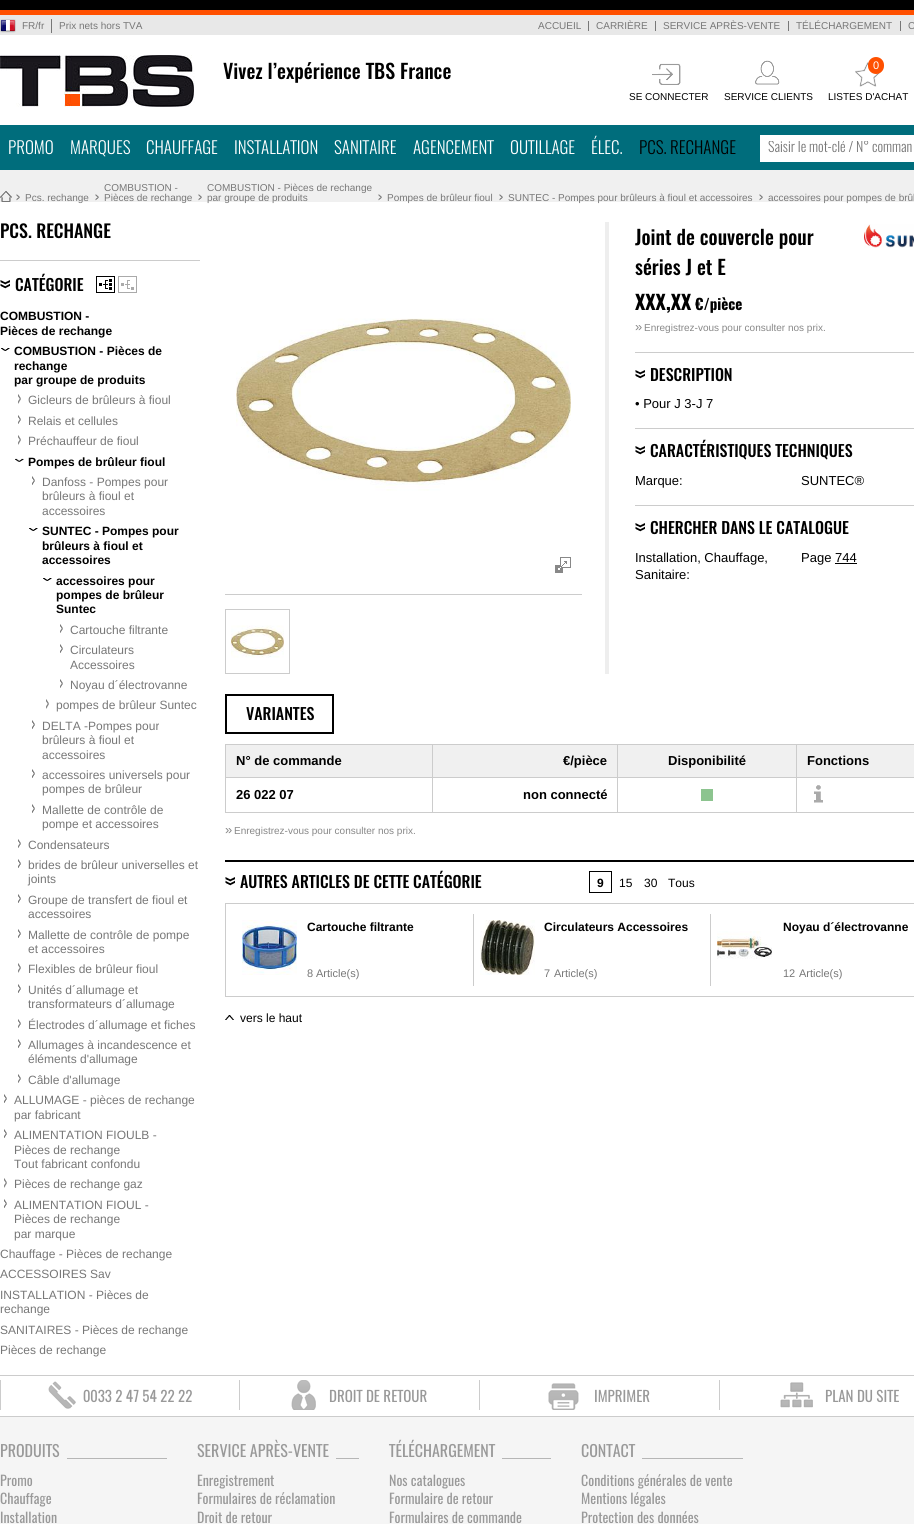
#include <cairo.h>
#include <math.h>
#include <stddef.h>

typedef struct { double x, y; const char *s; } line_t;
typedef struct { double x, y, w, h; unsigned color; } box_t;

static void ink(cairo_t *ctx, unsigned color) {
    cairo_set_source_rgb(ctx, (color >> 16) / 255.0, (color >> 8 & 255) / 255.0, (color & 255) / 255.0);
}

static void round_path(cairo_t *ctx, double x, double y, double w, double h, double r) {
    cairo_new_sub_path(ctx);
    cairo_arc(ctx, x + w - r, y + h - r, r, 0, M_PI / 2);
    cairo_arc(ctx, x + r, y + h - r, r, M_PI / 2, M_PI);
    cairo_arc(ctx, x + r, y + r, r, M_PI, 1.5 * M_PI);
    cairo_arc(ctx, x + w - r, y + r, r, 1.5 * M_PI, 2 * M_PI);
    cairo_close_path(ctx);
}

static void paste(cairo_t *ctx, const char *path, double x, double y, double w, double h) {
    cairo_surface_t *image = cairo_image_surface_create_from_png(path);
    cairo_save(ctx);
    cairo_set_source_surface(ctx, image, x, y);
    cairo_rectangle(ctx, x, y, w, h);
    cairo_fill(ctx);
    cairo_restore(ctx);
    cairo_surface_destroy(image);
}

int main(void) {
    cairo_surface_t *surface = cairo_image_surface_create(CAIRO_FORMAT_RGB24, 914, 1524);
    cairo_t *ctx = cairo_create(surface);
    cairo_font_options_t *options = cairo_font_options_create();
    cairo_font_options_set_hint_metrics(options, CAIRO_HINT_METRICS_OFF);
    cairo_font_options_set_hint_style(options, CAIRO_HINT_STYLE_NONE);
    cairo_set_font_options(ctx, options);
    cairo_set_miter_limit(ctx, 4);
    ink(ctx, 0xFFFFFF);
    cairo_paint(ctx);
    {
        static const box_t items[] = {
            {0, 0, 914, 10, 0x000000},
            {0, 10, 914, 5, 0xFF5000},
            {0, 15, 914, 20, 0xE8E8E8},
            {51, 19, 1, 14, 0x777777},
        };
        for (size_t i = 0; i < sizeof items / sizeof *items; i++) {
            ink(ctx, items[i].color);
            cairo_rectangle(ctx, items[i].x, items[i].y, items[i].w, items[i].h);
            cairo_fill(ctx);
        }
    }
    paste(ctx, "media/1.png", 0, 19, 16, 14);
    cairo_select_font_face(ctx, "Liberation Sans", CAIRO_FONT_SLANT_NORMAL, CAIRO_FONT_WEIGHT_NORMAL);
    cairo_set_font_size(ctx, 10);
    {
        static const line_t items[] = {
            {22, 29, "FR/fr"},
            {59, 29, "Prix nets hors TVA"},
            {538, 29, "ACCUEIL"},
        };
        for (size_t i = 0; i < sizeof items / sizeof *items; i++) {
            cairo_move_to(ctx, items[i].x, items[i].y);
            cairo_show_text(ctx, items[i].s);
        }
    }
    cairo_rectangle(ctx, 588, 21, 1, 10);
    cairo_fill(ctx);
    cairo_move_to(ctx, 596, 29);
    cairo_show_text(ctx, "CARRIÈRE");
    cairo_rectangle(ctx, 655, 21, 1, 10);
    cairo_fill(ctx);
    cairo_move_to(ctx, 663, 29);
    cairo_show_text(ctx, "SERVICE APRÈS-VENTE");
    cairo_rectangle(ctx, 788, 21, 1, 10);
    cairo_fill(ctx);
    cairo_move_to(ctx, 796, 29);
    cairo_show_text(ctx, "TÉLÉCHARGEMENT");
    cairo_rectangle(ctx, 900, 21, 1, 10);
    cairo_fill(ctx);
    cairo_move_to(ctx, 908, 29);
    cairo_show_text(ctx, "C");
    paste(ctx, "media/2.png", 0, 55, 195, 52);
    cairo_select_font_face(ctx, "Oswald Medium", CAIRO_FONT_SLANT_NORMAL, CAIRO_FONT_WEIGHT_NORMAL);
    cairo_set_font_size(ctx, 20);
    ink(ctx, 0x000000);
    cairo_move_to(ctx, 223, 79);
    cairo_show_text(ctx, "Vivez l’expérience TBS France");
    paste(ctx, "media/3.png", 652, 63, 29, 22);
    cairo_select_font_face(ctx, "Liberation Sans", CAIRO_FONT_SLANT_NORMAL, CAIRO_FONT_WEIGHT_NORMAL);
    cairo_set_font_size(ctx, 10);
    cairo_move_to(ctx, 629, 100);
    cairo_show_text(ctx, "SE CONNECTER");
    paste(ctx, "media/4.png", 755, 60, 25, 25);
    cairo_move_to(ctx, 724, 100);
    cairo_show_text(ctx, "SERVICE CLIENTS");
    paste(ctx, "media/5.png", 855, 62, 26, 25);
    ink(ctx, 0xFF5000);
    round_path(ctx, 868, 57, 16, 17, 8);
    cairo_fill(ctx);
    cairo_set_font_size(ctx, 11);
    ink(ctx, 0xFFFFFF);
    cairo_move_to(ctx, 873, 69);
    cairo_show_text(ctx, "0");
    cairo_set_font_size(ctx, 10);
    ink(ctx, 0x000000);
    cairo_move_to(ctx, 828, 100);
    cairo_show_text(ctx, "LISTES D'ACHAT");
    ink(ctx, 0x006D7C);
    cairo_rectangle(ctx, 0, 125, 914, 45);
    cairo_fill(ctx);
    cairo_select_font_face(ctx, "Oswald Light", CAIRO_FONT_SLANT_NORMAL, CAIRO_FONT_WEIGHT_NORMAL);
    cairo_set_font_size(ctx, 17);
    ink(ctx, 0xFFFFFF);
    {
        static const line_t items[] = {
            {8, 154, "PROMO"},
            {70, 154, "MARQUES"},
            {146, 154, "CHAUFFAGE"},
            {234, 154, "INSTALLATION"},
            {334, 154, "SANITAIRE"},
            {413, 154, "AGENCEMENT"},
            {510, 154, "OUTILLAGE"},
            {591, 154, "ÉLEC."},
        };
        for (size_t i = 0; i < sizeof items / sizeof *items; i++) {
            cairo_move_to(ctx, items[i].x, items[i].y);
            cairo_show_text(ctx, items[i].s);
        }
    }
    ink(ctx, 0x000000);
    cairo_move_to(ctx, 639, 154);
    cairo_show_text(ctx, "PCS. RECHANGE");
    ink(ctx, 0xFFFFFF);
    cairo_rectangle(ctx, 760, 135, 154, 27);
    cairo_fill(ctx);
    cairo_save(ctx);
    cairo_rectangle(ctx, 768, 141, 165, 14);
    cairo_clip(ctx);
    cairo_set_font_size(ctx, 14);
    ink(ctx, 0x777777);
    cairo_move_to(ctx, 768, 152);
    cairo_show_text(ctx, "Saisir le mot-clé / N° comman");
    cairo_restore(ctx);
    ink(ctx, 0xF0F0F0);
    cairo_rectangle(ctx, 0, 170, 914, 32);
    cairo_fill(ctx);
    paste(ctx, "media/6.png", 0, 191, 12, 11);
    paste(ctx, "media/7.png", 16, 194, 4, 7);
    cairo_select_font_face(ctx, "Liberation Sans", CAIRO_FONT_SLANT_NORMAL, CAIRO_FONT_WEIGHT_NORMAL);
    cairo_set_font_size(ctx, 10);
    ink(ctx, 0x777777);
    cairo_move_to(ctx, 25, 201);
    cairo_show_text(ctx, "Pcs. rechange");
    paste(ctx, "media/7.png", 95, 194, 4, 7);
    cairo_move_to(ctx, 104, 191);
    cairo_show_text(ctx, "COMBUSTION -");
    cairo_move_to(ctx, 104, 201);
    cairo_show_text(ctx, "Pièces de rechange");
    paste(ctx, "media/7.png", 198, 194, 4, 7);
    cairo_move_to(ctx, 207, 191);
    cairo_show_text(ctx, "COMBUSTION - Pièces de rechange");
    cairo_move_to(ctx, 207, 201);
    cairo_show_text(ctx, "par groupe de produits");
    paste(ctx, "media/7.png", 378, 194, 4, 7);
    cairo_move_to(ctx, 387, 201);
    cairo_show_text(ctx, "Pompes de brûleur fioul");
    paste(ctx, "media/7.png", 499, 194, 4, 7);
    cairo_move_to(ctx, 508, 201);
    cairo_show_text(ctx, "SUNTEC - Pompes pour brûleurs à fioul et accessoires");
    paste(ctx, "media/7.png", 759, 194, 4, 7);
    cairo_move_to(ctx, 768, 201);
    cairo_show_text(ctx, "accessoires pour pompes de brûl");
    cairo_select_font_face(ctx, "Oswald Medium", CAIRO_FONT_SLANT_NORMAL, CAIRO_FONT_WEIGHT_NORMAL);
    cairo_set_font_size(ctx, 18);
    ink(ctx, 0x000000);
    cairo_move_to(ctx, 0, 238);
    cairo_show_text(ctx, "PCS. RECHANGE");
    ink(ctx, 0xCCCCCC);
    cairo_rectangle(ctx, 0, 260, 200, 1);
    cairo_fill(ctx);
    paste(ctx, "media/8.png", 0, 280, 10, 9);
    cairo_set_font_size(ctx, 16);
    ink(ctx, 0x000000);
    cairo_move_to(ctx, 15, 291);
    cairo_show_text(ctx, "CATÉGORIE");
    paste(ctx, "media/9.png", 99, 279, 13, 11);
    cairo_rectangle(ctx, 96.5, 276.5, 18, 16);
    cairo_set_line_width(ctx, 1);
    cairo_stroke(ctx);
    paste(ctx, "media/10.png", 121, 280, 13, 10);
    cairo_rectangle(ctx, 118.5, 276.5, 18, 16);
    ink(ctx, 0xAAAAAA);
    cairo_stroke(ctx);
    cairo_select_font_face(ctx, "Liberation Sans", CAIRO_FONT_SLANT_NORMAL, CAIRO_FONT_WEIGHT_BOLD);
    cairo_set_font_size(ctx, 12);
    ink(ctx, 0x000000);
    cairo_move_to(ctx, 0, 320);
    cairo_show_text(ctx, "COMBUSTION -");
    cairo_move_to(ctx, 0, 335);
    cairo_show_text(ctx, "Pièces de rechange");
    paste(ctx, "media/11.png", 1, 348, 9, 3);
    {
        static const line_t items[] = {
            {14, 355, "COMBUSTION - Pièces de"},
            {14, 370, "rechange"},
            {14, 384, "par groupe de produits"},
        };
        for (size_t i = 0; i < sizeof items / sizeof *items; i++) {
            cairo_move_to(ctx, items[i].x, items[i].y);
            cairo_show_text(ctx, items[i].s);
        }
    }
    paste(ctx, "media/12.png", 18, 394, 3, 10);
    cairo_select_font_face(ctx, "Liberation Sans", CAIRO_FONT_SLANT_NORMAL, CAIRO_FONT_WEIGHT_NORMAL);
    ink(ctx, 0x777777);
    cairo_move_to(ctx, 28, 404);
    cairo_show_text(ctx, "Gicleurs de brûleurs à fioul");
    paste(ctx, "media/13.png", 18, 415, 3, 9);
    cairo_move_to(ctx, 28, 425);
    cairo_show_text(ctx, "Relais et cellules");
    paste(ctx, "media/12.png", 18, 435, 3, 10);
    cairo_move_to(ctx, 28, 445);
    cairo_show_text(ctx, "Préchauffeur de fioul");
    paste(ctx, "media/14.png", 15, 458, 9, 4);
    cairo_select_font_face(ctx, "Liberation Sans", CAIRO_FONT_SLANT_NORMAL, CAIRO_FONT_WEIGHT_BOLD);
    ink(ctx, 0x000000);
    cairo_move_to(ctx, 28, 466);
    cairo_show_text(ctx, "Pompes de brûleur fioul");
    paste(ctx, "media/15.png", 32, 476, 3, 9);
    cairo_select_font_face(ctx, "Liberation Sans", CAIRO_FONT_SLANT_NORMAL, CAIRO_FONT_WEIGHT_NORMAL);
    ink(ctx, 0x777777);
    {
        static const line_t items[] = {
            {42, 486, "Danfoss - Pompes pour"},
            {42, 500, "brûleurs à fioul et"},
            {42, 515, "accessoires"},
        };
        for (size_t i = 0; i < sizeof items / sizeof *items; i++) {
            cairo_move_to(ctx, items[i].x, items[i].y);
            cairo_show_text(ctx, items[i].s);
        }
    }
    paste(ctx, "media/11.png", 29, 528, 9, 3);
    cairo_select_font_face(ctx, "Liberation Sans", CAIRO_FONT_SLANT_NORMAL, CAIRO_FONT_WEIGHT_BOLD);
    ink(ctx, 0x000000);
    {
        static const line_t items[] = {
            {42, 535, "SUNTEC - Pompes pour"},
            {42, 550, "brûleurs à fioul et"},
            {42, 564, "accessoires"},
        };
        for (size_t i = 0; i < sizeof items / sizeof *items; i++) {
            cairo_move_to(ctx, items[i].x, items[i].y);
            cairo_show_text(ctx, items[i].s);
        }
    }
    paste(ctx, "media/11.png", 43, 578, 9, 3);
    {
        static const line_t items[] = {
            {56, 585, "accessoires pour"},
            {56, 599, "pompes de brûleur"},
            {56, 613, "Suntec"},
        };
        for (size_t i = 0; i < sizeof items / sizeof *items; i++) {
            cairo_move_to(ctx, items[i].x, items[i].y);
            cairo_show_text(ctx, items[i].s);
        }
    }
    paste(ctx, "media/13.png", 60, 624, 3, 9);
    cairo_select_font_face(ctx, "Liberation Sans", CAIRO_FONT_SLANT_NORMAL, CAIRO_FONT_WEIGHT_NORMAL);
    ink(ctx, 0x777777);
    cairo_move_to(ctx, 70, 634);
    cairo_show_text(ctx, "Cartouche filtrante");
    paste(ctx, "media/15.png", 60, 644, 3, 9);
    cairo_move_to(ctx, 70, 654);
    cairo_show_text(ctx, "Circulateurs");
    cairo_move_to(ctx, 70, 669);
    cairo_show_text(ctx, "Accessoires");
    paste(ctx, "media/13.png", 60, 679, 3, 9);
    cairo_move_to(ctx, 70, 689);
    cairo_show_text(ctx, "Noyau d´électrovanne");
    paste(ctx, "media/12.png", 46, 699, 3, 10);
    cairo_move_to(ctx, 56, 709);
    cairo_show_text(ctx, "pompes de brûleur Suntec");
    paste(ctx, "media/15.png", 32, 720, 3, 9);
    {
        static const line_t items[] = {
            {42, 730, "DELTA -Pompes pour"},
            {42, 744, "brûleurs à fioul et"},
            {42, 759, "accessoires"},
        };
        for (size_t i = 0; i < sizeof items / sizeof *items; i++) {
            cairo_move_to(ctx, items[i].x, items[i].y);
            cairo_show_text(ctx, items[i].s);
        }
    }
    paste(ctx, "media/15.png", 32, 769, 3, 9);
    cairo_move_to(ctx, 42, 779);
    cairo_show_text(ctx, "accessoires universels pour");
    cairo_move_to(ctx, 42, 793);
    cairo_show_text(ctx, "pompes de brûleur");
    paste(ctx, "media/15.png", 32, 804, 3, 9);
    cairo_move_to(ctx, 42, 814);
    cairo_show_text(ctx, "Mallette de contrôle de");
    cairo_move_to(ctx, 42, 828);
    cairo_show_text(ctx, "pompe et accessoires");
    paste(ctx, "media/13.png", 18, 839, 3, 9);
    cairo_move_to(ctx, 28, 849);
    cairo_show_text(ctx, "Condensateurs");
    paste(ctx, "media/15.png", 18, 859, 3, 9);
    cairo_move_to(ctx, 28, 869);
    cairo_show_text(ctx, "brides de brûleur universelles et");
    cairo_move_to(ctx, 28, 883);
    cairo_show_text(ctx, "joints");
    paste(ctx, "media/15.png", 18, 894, 3, 9);
    cairo_move_to(ctx, 28, 904);
    cairo_show_text(ctx, "Groupe de transfert de fioul et");
    cairo_move_to(ctx, 28, 918);
    cairo_show_text(ctx, "accessoires");
    paste(ctx, "media/15.png", 18, 929, 3, 9);
    cairo_move_to(ctx, 28, 939);
    cairo_show_text(ctx, "Mallette de contrôle de pompe");
    cairo_move_to(ctx, 28, 953);
    cairo_show_text(ctx, "et accessoires");
    paste(ctx, "media/12.png", 18, 963, 3, 10);
    cairo_move_to(ctx, 28, 973);
    cairo_show_text(ctx, "Flexibles de brûleur fioul");
    paste(ctx, "media/15.png", 18, 984, 3, 9);
    cairo_move_to(ctx, 28, 994);
    cairo_show_text(ctx, "Unités d´allumage et");
    cairo_move_to(ctx, 28, 1008);
    cairo_show_text(ctx, "transformateurs d´allumage");
    paste(ctx, "media/13.png", 18, 1019, 3, 9);
    cairo_move_to(ctx, 28, 1029);
    cairo_show_text(ctx, "Électrodes d´allumage et fiches");
    paste(ctx, "media/15.png", 18, 1039, 3, 9);
    cairo_move_to(ctx, 28, 1049);
    cairo_show_text(ctx, "Allumages à incandescence et");
    cairo_move_to(ctx, 28, 1063);
    cairo_show_text(ctx, "éléments d'allumage");
    paste(ctx, "media/13.png", 18, 1074, 3, 9);
    cairo_move_to(ctx, 28, 1084);
    cairo_show_text(ctx, "Câble d'allumage");
    paste(ctx, "media/15.png", 4, 1094, 3, 9);
    cairo_move_to(ctx, 14, 1104);
    cairo_show_text(ctx, "ALLUMAGE - pièces de rechange");
    cairo_move_to(ctx, 14, 1119);
    cairo_show_text(ctx, "par fabricant");
    paste(ctx, "media/15.png", 4, 1129, 3, 9);
    {
        static const line_t items[] = {
            {14, 1139, "ALIMENTATION FIOULB -"},
            {14, 1154, "Pièces de rechange"},
            {14, 1168, "Tout fabricant confondu"},
        };
        for (size_t i = 0; i < sizeof items / sizeof *items; i++) {
            cairo_move_to(ctx, items[i].x, items[i].y);
            cairo_show_text(ctx, items[i].s);
        }
    }
    paste(ctx, "media/12.png", 4, 1178, 3, 10);
    cairo_move_to(ctx, 14, 1188);
    cairo_show_text(ctx, "Pièces de rechange gaz");
    paste(ctx, "media/15.png", 4, 1199, 3, 9);
    {
        static const line_t items[] = {
            {14, 1209, "ALIMENTATION FIOUL -"},
            {14, 1223, "Pièces de rechange"},
            {14, 1238, "par marque"},
            {0, 1258, "Chauffage - Pièces de rechange"},
            {0, 1278, "ACCESSOIRES Sav"},
            {0, 1299, "INSTALLATION - Pièces de"},
            {0, 1313, "rechange"},
            {0, 1334, "SANITAIRES - Pièces de rechange"},
            {0, 1354, "Pièces de rechange"},
        };
        for (size_t i = 0; i < sizeof items / sizeof *items; i++) {
            cairo_move_to(ctx, items[i].x, items[i].y);
            cairo_show_text(ctx, items[i].s);
        }
    }
    ink(ctx, 0xCCCCCC);
    cairo_rectangle(ctx, 225, 594, 357, 1);
    cairo_fill(ctx);
    paste(ctx, "media/16.png", 236, 318, 335, 173);
    paste(ctx, "media/17.png", 555, 557, 16, 16);
    cairo_rectangle(ctx, 225.5, 609.5, 64, 64);
    cairo_stroke(ctx);
    paste(ctx, "media/18.png", 231, 625, 53, 33);
    ink(ctx, 0xEEEEEE);
    cairo_rectangle(ctx, 605, 222, 4, 452);
    cairo_fill(ctx);
    cairo_select_font_face(ctx, "Oswald Medium", CAIRO_FONT_SLANT_NORMAL, CAIRO_FONT_WEIGHT_NORMAL);
    cairo_set_font_size(ctx, 20);
    ink(ctx, 0x000000);
    cairo_move_to(ctx, 635, 245);
    cairo_show_text(ctx, "Joint de couvercle pour");
    cairo_move_to(ctx, 635, 275);
    cairo_show_text(ctx, "séries J et E");
    paste(ctx, "media/19.png", 864, 224, 50, 24);
    cairo_select_font_face(ctx, "Oswald", CAIRO_FONT_SLANT_NORMAL, CAIRO_FONT_WEIGHT_BOLD);
    cairo_move_to(ctx, 635, 310);
    cairo_show_text(ctx, "XXX,XX");
    cairo_set_font_size(ctx, 15);
    cairo_move_to(ctx, 695, 310);
    cairo_show_text(ctx, "€/pièce");
    cairo_select_font_face(ctx, "Liberation Sans", CAIRO_FONT_SLANT_NORMAL, CAIRO_FONT_WEIGHT_NORMAL);
    cairo_set_font_size(ctx, 13);
    ink(ctx, 0x888888);
    cairo_move_to(ctx, 635, 331);
    cairo_show_text(ctx, "»");
    cairo_set_font_size(ctx, 10);
    cairo_move_to(ctx, 644, 331);
    cairo_show_text(ctx, "Enregistrez-vous pour consulter nos prix.");
    ink(ctx, 0xCCCCCC);
    cairo_rectangle(ctx, 635, 352, 279, 1);
    cairo_fill(ctx);
    paste(ctx, "media/8.png", 635, 370, 10, 9);
    cairo_select_font_face(ctx, "Oswald Medium", CAIRO_FONT_SLANT_NORMAL, CAIRO_FONT_WEIGHT_NORMAL);
    cairo_set_font_size(ctx, 16);
    ink(ctx, 0x000000);
    cairo_move_to(ctx, 650, 381);
    cairo_show_text(ctx, "DESCRIPTION");
    cairo_select_font_face(ctx, "Liberation Sans", CAIRO_FONT_SLANT_NORMAL, CAIRO_FONT_WEIGHT_NORMAL);
    cairo_set_font_size(ctx, 13);
    cairo_move_to(ctx, 635, 408);
    cairo_show_text(ctx, "• Pour J 3-J 7");
    ink(ctx, 0xCCCCCC);
    cairo_rectangle(ctx, 635, 428, 279, 1);
    cairo_fill(ctx);
    paste(ctx, "media/8.png", 635, 446, 10, 9);
    cairo_select_font_face(ctx, "Oswald Medium", CAIRO_FONT_SLANT_NORMAL, CAIRO_FONT_WEIGHT_NORMAL);
    cairo_set_font_size(ctx, 16);
    ink(ctx, 0x000000);
    cairo_move_to(ctx, 650, 457);
    cairo_show_text(ctx, "CARACTÉRISTIQUES TECHNIQUES");
    cairo_select_font_face(ctx, "Liberation Sans", CAIRO_FONT_SLANT_NORMAL, CAIRO_FONT_WEIGHT_NORMAL);
    cairo_set_font_size(ctx, 13);
    cairo_move_to(ctx, 635, 485);
    cairo_show_text(ctx, "Marque:");
    cairo_move_to(ctx, 801, 485);
    cairo_show_text(ctx, "SUNTEC®");
    ink(ctx, 0xCCCCCC);
    cairo_rectangle(ctx, 635, 505, 279, 1);
    cairo_fill(ctx);
    paste(ctx, "media/8.png", 635, 523, 10, 9);
    cairo_select_font_face(ctx, "Oswald Medium", CAIRO_FONT_SLANT_NORMAL, CAIRO_FONT_WEIGHT_NORMAL);
    cairo_set_font_size(ctx, 16);
    ink(ctx, 0x000000);
    cairo_move_to(ctx, 650, 534);
    cairo_show_text(ctx, "CHERCHER DANS LE CATALOGUE");
    cairo_select_font_face(ctx, "Liberation Sans", CAIRO_FONT_SLANT_NORMAL, CAIRO_FONT_WEIGHT_NORMAL);
    cairo_set_font_size(ctx, 13);
    {
        static const line_t items[] = {
            {635, 562, "Installation, Chauffage,"},
            {635, 579, "Sanitaire:"},
            {801, 562, "Page 744"},
        };
        for (size_t i = 0; i < sizeof items / sizeof *items; i++) {
            cairo_move_to(ctx, items[i].x, items[i].y);
            cairo_show_text(ctx, items[i].s);
        }
    }
    cairo_rectangle(ctx, 835, 563, 22, 1);
    cairo_fill(ctx);
    cairo_rectangle(ctx, 226, 695, 107, 38);
    cairo_set_line_width(ctx, 2);
    cairo_stroke(ctx);
    cairo_select_font_face(ctx, "Oswald Medium", CAIRO_FONT_SLANT_NORMAL, CAIRO_FONT_WEIGHT_NORMAL);
    cairo_set_font_size(ctx, 16);
    cairo_move_to(ctx, 246, 720);
    cairo_show_text(ctx, "VARIANTES");
    {
        static const box_t items[] = {
            {226, 745, 206, 32, 0xF0F0F0},
            {796, 744, 118, 1, 0xCCCCCC},
            {796, 777, 118, 1, 0xCCCCCC},
            {796, 812, 118, 1, 0xCCCCCC},
            {796, 777, 1, 36, 0xCCCCCC},
            {617, 777, 180, 1, 0xCCCCCC},
            {796, 744, 1, 34, 0xCCCCCC},
            {617, 744, 180, 1, 0xCCCCCC},
            {617, 812, 180, 1, 0xCCCCCC},
            {617, 777, 1, 36, 0xCCCCCC},
            {432, 777, 186, 1, 0xCCCCCC},
            {617, 744, 1, 34, 0xCCCCCC},
            {432, 744, 186, 1, 0xCCCCCC},
            {432, 812, 186, 1, 0xCCCCCC},
            {432, 777, 1, 36, 0xCCCCCC},
            {225, 777, 208, 1, 0xCCCCCC},
            {432, 744, 1, 34, 0xCCCCCC},
            {225, 744, 208, 1, 0xCCCCCC},
            {225, 812, 208, 1, 0xCCCCCC},
            {225, 777, 1, 36, 0xCCCCCC},
            {225, 744, 1, 34, 0xCCCCCC},
        };
        for (size_t i = 0; i < sizeof items / sizeof *items; i++) {
            ink(ctx, items[i].color);
            cairo_rectangle(ctx, items[i].x, items[i].y, items[i].w, items[i].h);
            cairo_fill(ctx);
        }
    }
    cairo_select_font_face(ctx, "Liberation Sans", CAIRO_FONT_SLANT_NORMAL, CAIRO_FONT_WEIGHT_BOLD);
    cairo_set_font_size(ctx, 13);
    ink(ctx, 0x000000);
    cairo_move_to(ctx, 236, 765);
    cairo_show_text(ctx, "N° de commande");
    ink(ctx, 0xF0F0F0);
    cairo_rectangle(ctx, 433, 745, 184, 32);
    cairo_fill(ctx);
    ink(ctx, 0x000000);
    cairo_move_to(ctx, 563, 765);
    cairo_show_text(ctx, "€/pièce");
    ink(ctx, 0xF0F0F0);
    cairo_rectangle(ctx, 618, 745, 178, 32);
    cairo_fill(ctx);
    ink(ctx, 0x000000);
    cairo_move_to(ctx, 668, 765);
    cairo_show_text(ctx, "Disponibilité");
    ink(ctx, 0xF0F0F0);
    cairo_rectangle(ctx, 797, 745, 117, 32);
    cairo_fill(ctx);
    ink(ctx, 0x000000);
    {
        static const line_t items[] = {
            {807, 765, "Fonctions"},
            {236, 799, "26 022 07"},
            {523, 799, "non connecté"},
        };
        for (size_t i = 0; i < sizeof items / sizeof *items; i++) {
            cairo_move_to(ctx, items[i].x, items[i].y);
            cairo_show_text(ctx, items[i].s);
        }
    }
    ink(ctx, 0x8CC48F);
    cairo_rectangle(ctx, 701, 789, 12, 12);
    cairo_fill(ctx);
    paste(ctx, "media/20.png", 814, 785, 9, 18);
    cairo_select_font_face(ctx, "Liberation Sans", CAIRO_FONT_SLANT_NORMAL, CAIRO_FONT_WEIGHT_NORMAL);
    ink(ctx, 0x888888);
    cairo_move_to(ctx, 225, 834);
    cairo_show_text(ctx, "»");
    cairo_set_font_size(ctx, 10);
    cairo_move_to(ctx, 234, 834);
    cairo_show_text(ctx, "Enregistrez-vous pour consulter nos prix.");
    ink(ctx, 0x000000);
    cairo_rectangle(ctx, 225, 860, 689, 2);
    cairo_fill(ctx);
    paste(ctx, "media/8.png", 225, 877, 10, 9);
    cairo_select_font_face(ctx, "Oswald Medium", CAIRO_FONT_SLANT_NORMAL, CAIRO_FONT_WEIGHT_NORMAL);
    cairo_set_font_size(ctx, 16);
    cairo_move_to(ctx, 240, 888);
    cairo_show_text(ctx, "AUTRES ARTICLES DE CETTE CATÉGORIE");
    cairo_rectangle(ctx, 589.5, 871.5, 22, 21);
    cairo_set_line_width(ctx, 1);
    cairo_stroke(ctx);
    cairo_select_font_face(ctx, "Liberation Sans", CAIRO_FONT_SLANT_NORMAL, CAIRO_FONT_WEIGHT_BOLD);
    cairo_set_font_size(ctx, 12);
    cairo_move_to(ctx, 597, 887);
    cairo_show_text(ctx, "9");
    cairo_select_font_face(ctx, "Liberation Sans", CAIRO_FONT_SLANT_NORMAL, CAIRO_FONT_WEIGHT_NORMAL);
    {
        static const line_t items[] = {
            {619, 887, "15"},
            {644, 887, "30"},
            {668, 887, "Tous"},
        };
        for (size_t i = 0; i < sizeof items / sizeof *items; i++) {
            cairo_move_to(ctx, items[i].x, items[i].y);
            cairo_show_text(ctx, items[i].s);
        }
    }
    cairo_rectangle(ctx, 225.5, 903.5, 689, 93);
    ink(ctx, 0xCCCCCC);
    cairo_stroke(ctx);
    cairo_rectangle(ctx, 473, 914, 1, 72);
    cairo_fill(ctx);
    paste(ctx, "media/21.png", 242, 920, 55, 55);
    cairo_select_font_face(ctx, "Liberation Sans", CAIRO_FONT_SLANT_NORMAL, CAIRO_FONT_WEIGHT_BOLD);
    ink(ctx, 0x000000);
    cairo_move_to(ctx, 307, 931);
    cairo_show_text(ctx, "Cartouche filtrante");
    cairo_select_font_face(ctx, "Liberation Sans", CAIRO_FONT_SLANT_NORMAL, CAIRO_FONT_WEIGHT_NORMAL);
    cairo_set_font_size(ctx, 11);
    ink(ctx, 0x777777);
    cairo_move_to(ctx, 307, 977);
    cairo_show_text(ctx, "8");
    cairo_move_to(ctx, 316, 977);
    cairo_show_text(ctx, "Article(s)");
    ink(ctx, 0xCCCCCC);
    cairo_rectangle(ctx, 710, 914, 1, 72);
    cairo_fill(ctx);
    paste(ctx, "media/22.png", 480, 920, 55, 55);
    cairo_select_font_face(ctx, "Liberation Sans", CAIRO_FONT_SLANT_NORMAL, CAIRO_FONT_WEIGHT_BOLD);
    cairo_set_font_size(ctx, 12);
    ink(ctx, 0x000000);
    cairo_move_to(ctx, 544, 931);
    cairo_show_text(ctx, "Circulateurs Accessoires");
    cairo_select_font_face(ctx, "Liberation Sans", CAIRO_FONT_SLANT_NORMAL, CAIRO_FONT_WEIGHT_NORMAL);
    cairo_set_font_size(ctx, 11);
    ink(ctx, 0x777777);
    cairo_move_to(ctx, 544, 977);
    cairo_show_text(ctx, "7");
    cairo_move_to(ctx, 554, 977);
    cairo_show_text(ctx, "Article(s)");
    paste(ctx, "media/23.png", 717, 931, 55, 28);
    cairo_select_font_face(ctx, "Liberation Sans", CAIRO_FONT_SLANT_NORMAL, CAIRO_FONT_WEIGHT_BOLD);
    cairo_set_font_size(ctx, 12);
    ink(ctx, 0x000000);
    cairo_move_to(ctx, 783, 931);
    cairo_show_text(ctx, "Noyau d´électrovanne");
    cairo_select_font_face(ctx, "Liberation Sans", CAIRO_FONT_SLANT_NORMAL, CAIRO_FONT_WEIGHT_NORMAL);
    cairo_set_font_size(ctx, 11);
    ink(ctx, 0x777777);
    cairo_move_to(ctx, 783, 977);
    cairo_show_text(ctx, "12");
    cairo_move_to(ctx, 799, 977);
    cairo_show_text(ctx, "Article(s)");
    paste(ctx, "media/24.png", 225, 1015, 9, 5);
    cairo_set_font_size(ctx, 12);
    ink(ctx, 0x000000);
    cairo_move_to(ctx, 240, 1022);
    cairo_show_text(ctx, "vers le haut");
    {
        static const box_t items[] = {
            {0, 1375, 914, 1, 0xCCCCCC},
            {0, 1416, 914, 1, 0xCCCCCC},
            {239, 1380, 1, 30, 0xCCCCCC},
            {0, 1380, 1, 30, 0xCCCCCC},
        };
        for (size_t i = 0; i < sizeof items / sizeof *items; i++) {
            ink(ctx, items[i].color);
            cairo_rectangle(ctx, items[i].x, items[i].y, items[i].w, items[i].h);
            cairo_fill(ctx);
        }
    }
    paste(ctx, "media/25.png", 48, 1381, 28, 28);
    cairo_select_font_face(ctx, "Oswald", CAIRO_FONT_SLANT_NORMAL, CAIRO_FONT_WEIGHT_NORMAL);
    cairo_set_font_size(ctx, 15);
    ink(ctx, 0x999999);
    cairo_move_to(ctx, 83, 1402);
    cairo_show_text(ctx, "0033 2 47 54 22 22");
    ink(ctx, 0xCCCCCC);
    cairo_rectangle(ctx, 479, 1380, 1, 30);
    cairo_fill(ctx);
    paste(ctx, "media/26.png", 291, 1380, 25, 30);
    ink(ctx, 0x999999);
    cairo_move_to(ctx, 329, 1402);
    cairo_show_text(ctx, "DROIT DE RETOUR");
    ink(ctx, 0xCCCCCC);
    cairo_rectangle(ctx, 719, 1380, 1, 30);
    cairo_fill(ctx);
    paste(ctx, "media/27.png", 548, 1383, 31, 27);
    ink(ctx, 0x999999);
    cairo_move_to(ctx, 594, 1402);
    cairo_show_text(ctx, "IMPRIMER");
    paste(ctx, "media/28.png", 780, 1382, 33, 26);
    cairo_move_to(ctx, 825, 1402);
    cairo_show_text(ctx, "PLAN DU SITE");
    ink(ctx, 0xF5F5F5);
    cairo_rectangle(ctx, 0, 1417, 914, 107);
    cairo_fill(ctx);
    ink(ctx, 0xB6B6B6);
    cairo_rectangle(ctx, 67, 1458, 100, 1);
    cairo_fill(ctx);
    cairo_set_font_size(ctx, 16);
    ink(ctx, 0x999999);
    cairo_move_to(ctx, 0, 1457);
    cairo_show_text(ctx, "PRODUITS");
    cairo_set_font_size(ctx, 14);
    {
        static const line_t items[] = {
            {0, 1486, "Promo"},
            {0, 1504, "Chauffage"},
            {0, 1523, "Installation"},
        };
        for (size_t i = 0; i < sizeof items / sizeof *items; i++) {
            cairo_move_to(ctx, items[i].x, items[i].y);
            cairo_show_text(ctx, items[i].s);
        }
    }
    ink(ctx, 0xB6B6B6);
    cairo_rectangle(ctx, 336, 1458, 23, 1);
    cairo_fill(ctx);
    cairo_set_font_size(ctx, 16);
    ink(ctx, 0x999999);
    cairo_move_to(ctx, 197, 1457);
    cairo_show_text(ctx, "SERVICE APRÈS-VENTE");
    cairo_set_font_size(ctx, 14);
    {
        static const line_t items[] = {
            {197, 1486, "Enregistrement"},
            {197, 1504, "Formulaires de réclamation"},
            {197, 1523, "Droit de retour"},
        };
        for (size_t i = 0; i < sizeof items / sizeof *items; i++) {
            cairo_move_to(ctx, items[i].x, items[i].y);
            cairo_show_text(ctx, items[i].s);
        }
    }
    ink(ctx, 0xB6B6B6);
    cairo_rectangle(ctx, 502, 1458, 49, 1);
    cairo_fill(ctx);
    cairo_set_font_size(ctx, 16);
    ink(ctx, 0x999999);
    cairo_move_to(ctx, 389, 1457);
    cairo_show_text(ctx, "TÉLÉCHARGEMENT");
    cairo_set_font_size(ctx, 14);
    {
        static const line_t items[] = {
            {389, 1486, "Nos catalogues"},
            {389, 1504, "Formulaire de retour"},
            {389, 1523, "Formulaires de commande"},
        };
        for (size_t i = 0; i < sizeof items / sizeof *items; i++) {
            cairo_move_to(ctx, items[i].x, items[i].y);
            cairo_show_text(ctx, items[i].s);
        }
    }
    ink(ctx, 0xB6B6B6);
    cairo_rectangle(ctx, 642, 1458, 101, 1);
    cairo_fill(ctx);
    cairo_set_font_size(ctx, 16);
    ink(ctx, 0x999999);
    cairo_move_to(ctx, 581, 1457);
    cairo_show_text(ctx, "CONTACT");
    cairo_set_font_size(ctx, 14);
    {
        static const line_t items[] = {
            {581, 1486, "Conditions générales de vente"},
            {581, 1504, "Mentions légales"},
            {581, 1523, "Protection des données"},
        };
        for (size_t i = 0; i < sizeof items / sizeof *items; i++) {
            cairo_move_to(ctx, items[i].x, items[i].y);
            cairo_show_text(ctx, items[i].s);
        }
    }
    cairo_surface_write_to_png(surface, "image.png");
    cairo_font_options_destroy(options);
    cairo_destroy(ctx);
    cairo_surface_destroy(surface);
    return 0;
}
